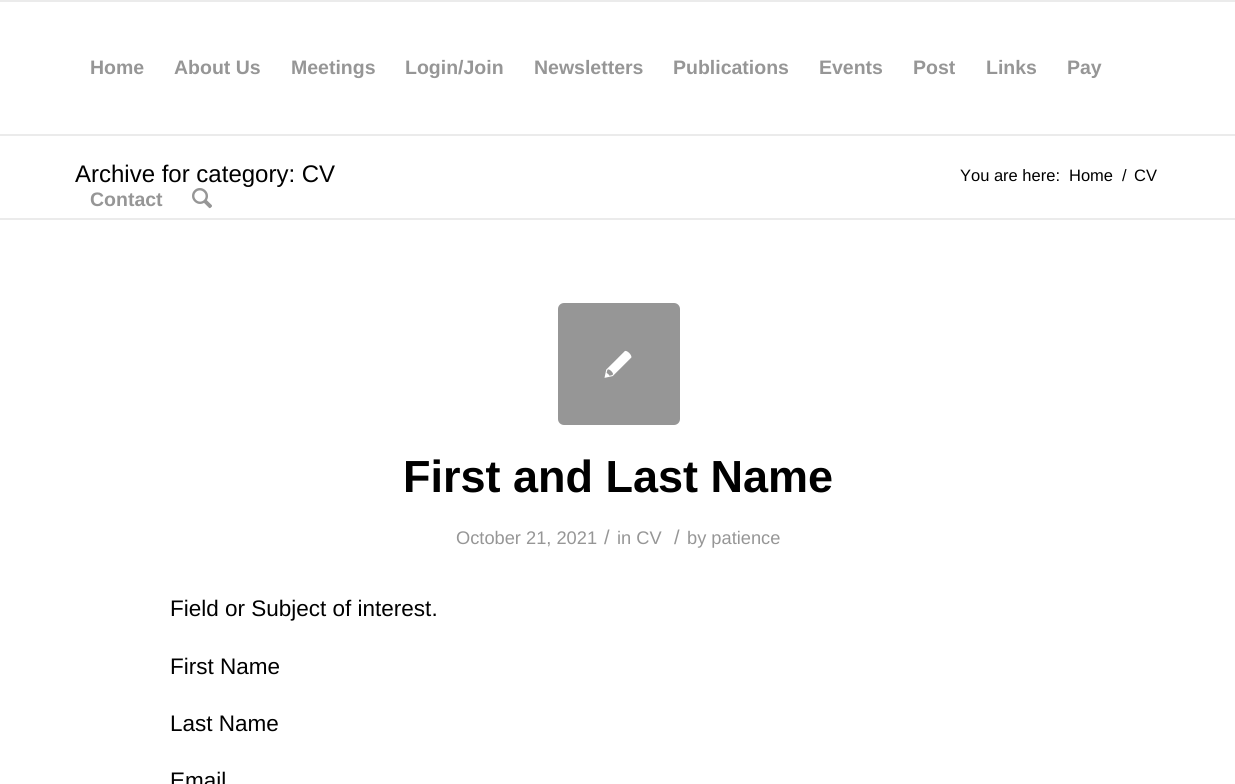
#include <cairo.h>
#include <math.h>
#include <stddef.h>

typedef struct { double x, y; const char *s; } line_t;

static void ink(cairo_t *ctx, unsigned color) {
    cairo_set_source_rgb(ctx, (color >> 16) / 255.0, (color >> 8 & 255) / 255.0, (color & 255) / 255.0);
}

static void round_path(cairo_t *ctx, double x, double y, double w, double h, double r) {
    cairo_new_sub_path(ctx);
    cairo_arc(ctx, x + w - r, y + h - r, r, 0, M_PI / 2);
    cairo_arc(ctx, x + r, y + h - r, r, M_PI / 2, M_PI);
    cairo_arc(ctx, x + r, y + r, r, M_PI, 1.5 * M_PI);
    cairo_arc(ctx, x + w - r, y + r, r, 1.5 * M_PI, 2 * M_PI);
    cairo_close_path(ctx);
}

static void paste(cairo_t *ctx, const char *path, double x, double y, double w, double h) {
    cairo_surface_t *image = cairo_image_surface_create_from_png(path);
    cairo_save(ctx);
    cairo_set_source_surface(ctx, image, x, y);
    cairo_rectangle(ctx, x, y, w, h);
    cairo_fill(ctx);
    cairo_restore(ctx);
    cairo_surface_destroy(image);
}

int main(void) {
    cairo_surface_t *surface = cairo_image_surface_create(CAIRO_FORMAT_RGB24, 1235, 784);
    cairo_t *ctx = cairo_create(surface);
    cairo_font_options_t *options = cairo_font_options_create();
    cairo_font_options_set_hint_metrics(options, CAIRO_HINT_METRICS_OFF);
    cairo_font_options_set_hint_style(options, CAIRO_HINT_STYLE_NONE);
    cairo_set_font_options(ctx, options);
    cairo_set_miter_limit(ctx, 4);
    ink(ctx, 0xFFFFFF);
    cairo_paint(ctx);
    ink(ctx, 0xEBEBEB);
    cairo_rectangle(ctx, 0, 0, 1235, 2);
    cairo_fill(ctx);
    cairo_rectangle(ctx, 0, 134, 1235, 2);
    cairo_fill(ctx);
    cairo_select_font_face(ctx, "Liberation Sans", CAIRO_FONT_SLANT_NORMAL, CAIRO_FONT_WEIGHT_BOLD);
    cairo_set_font_size(ctx, 19.5);
    ink(ctx, 0x969696);
    {
        static const line_t items[] = {
            {90, 74, "Home"},
            {174, 74, "About Us"},
            {291, 74, "Meetings"},
            {405, 74, "Login/Join"},
            {534, 74, "Newsletters"},
            {673, 74, "Publications"},
            {819, 74, "Events"},
            {913, 74, "Post"},
            {986, 74, "Links"},
            {1067, 74, "Pay"},
            {90, 206, "Contact"},
        };
        for (size_t i = 0; i < sizeof items / sizeof *items; i++) {
            cairo_move_to(ctx, items[i].x, items[i].y);
            cairo_show_text(ctx, items[i].s);
        }
    }
    paste(ctx, "media/1.png", 192, 188, 20, 21);
    cairo_select_font_face(ctx, "Liberation Sans", CAIRO_FONT_SLANT_NORMAL, CAIRO_FONT_WEIGHT_NORMAL);
    cairo_set_font_size(ctx, 24);
    ink(ctx, 0x000000);
    cairo_move_to(ctx, 75, 182);
    cairo_show_text(ctx, "Archive for category: CV");
    cairo_set_font_size(ctx, 16.5);
    {
        static const line_t items[] = {
            {960, 181, "You are here:"},
            {1069, 181, "Home"},
            {1122, 181, "/"},
            {1134, 181, "CV"},
        };
        for (size_t i = 0; i < sizeof items / sizeof *items; i++) {
            cairo_move_to(ctx, items[i].x, items[i].y);
            cairo_show_text(ctx, items[i].s);
        }
    }
    ink(ctx, 0xEBEBEB);
    cairo_rectangle(ctx, 0, 218, 1235, 2);
    cairo_fill(ctx);
    ink(ctx, 0x969696);
    round_path(ctx, 558, 303, 122, 122, 6);
    cairo_fill(ctx);
    paste(ctx, "media/2.png", 604, 350, 28, 28);
    cairo_select_font_face(ctx, "Liberation Sans", CAIRO_FONT_SLANT_NORMAL, CAIRO_FONT_WEIGHT_BOLD);
    cairo_set_font_size(ctx, 45);
    ink(ctx, 0x000000);
    cairo_move_to(ctx, 403, 492);
    cairo_show_text(ctx, "First and Last Name");
    cairo_select_font_face(ctx, "Liberation Sans", CAIRO_FONT_SLANT_NORMAL, CAIRO_FONT_WEIGHT_NORMAL);
    cairo_set_font_size(ctx, 18.25);
    ink(ctx, 0x969696);
    cairo_move_to(ctx, 456, 544);
    cairo_show_text(ctx, "October 21, 2021");
    cairo_set_font_size(ctx, 20);
    cairo_move_to(ctx, 604, 544);
    cairo_show_text(ctx, "/");
    cairo_set_font_size(ctx, 18.25);
    cairo_move_to(ctx, 617, 544);
    cairo_show_text(ctx, "in CV");
    cairo_set_font_size(ctx, 20);
    cairo_move_to(ctx, 674, 544);
    cairo_show_text(ctx, "/");
    cairo_set_font_size(ctx, 18.25);
    cairo_move_to(ctx, 687, 544);
    cairo_show_text(ctx, "by patience");
    cairo_set_font_size(ctx, 22.5);
    ink(ctx, 0x000000);
    {
        static const line_t items[] = {
            {170, 616, "Field or Subject of interest."},
            {170, 674, "First Name"},
            {170, 731, "Last Name"},
            {170, 788, "Email"},
        };
        for (size_t i = 0; i < sizeof items / sizeof *items; i++) {
            cairo_move_to(ctx, items[i].x, items[i].y);
            cairo_show_text(ctx, items[i].s);
        }
    }
    cairo_surface_write_to_png(surface, "image.png");
    cairo_font_options_destroy(options);
    cairo_destroy(ctx);
    cairo_surface_destroy(surface);
    return 0;
}
